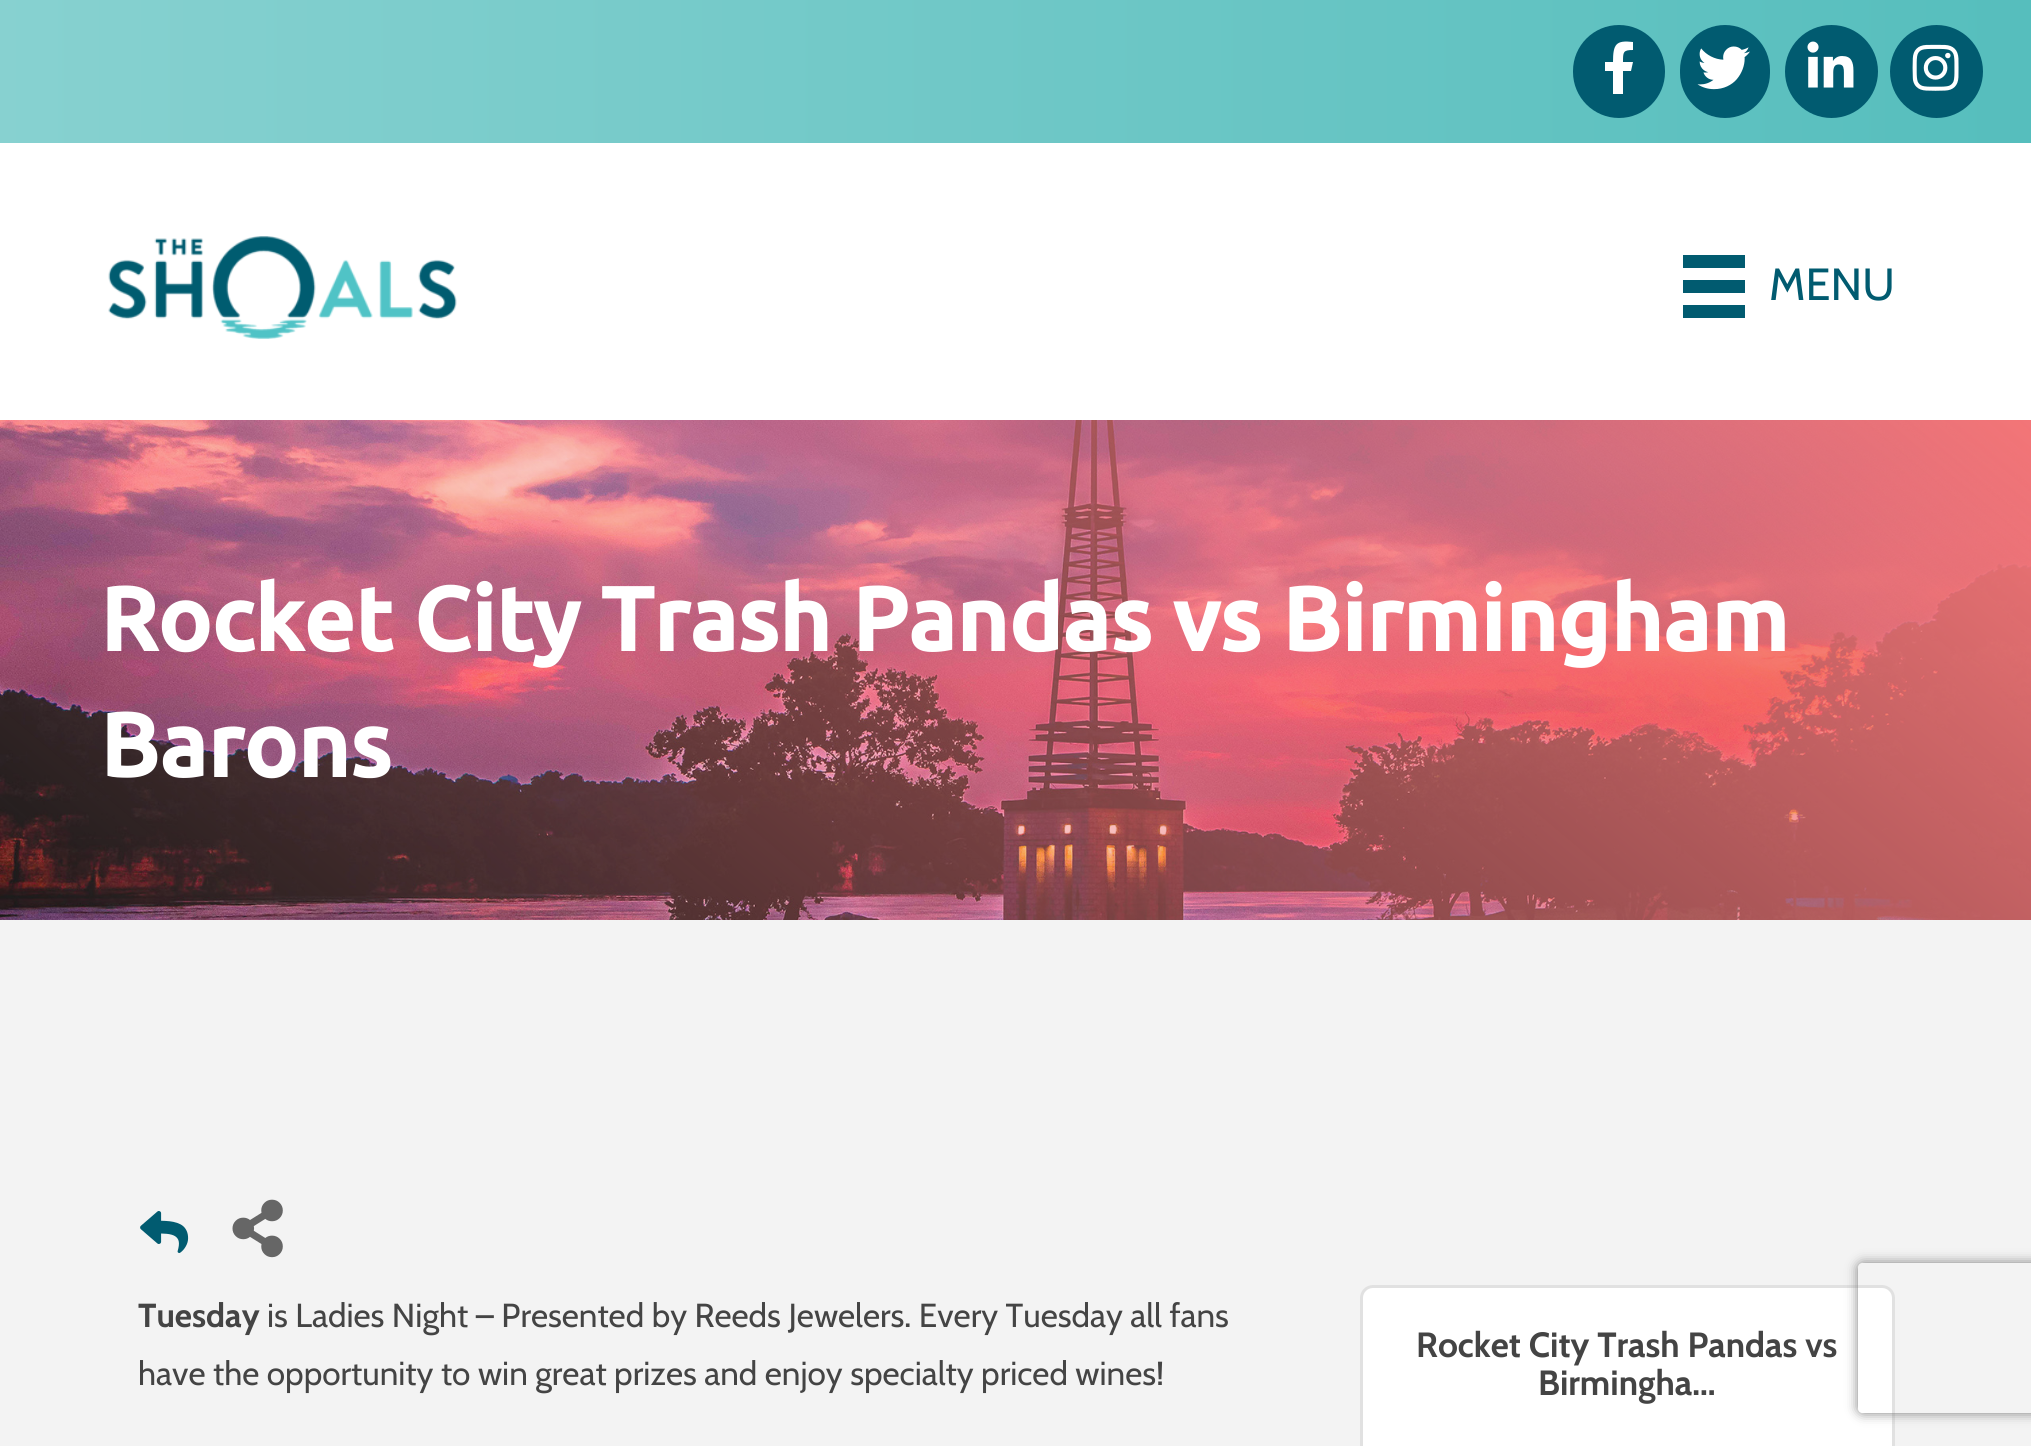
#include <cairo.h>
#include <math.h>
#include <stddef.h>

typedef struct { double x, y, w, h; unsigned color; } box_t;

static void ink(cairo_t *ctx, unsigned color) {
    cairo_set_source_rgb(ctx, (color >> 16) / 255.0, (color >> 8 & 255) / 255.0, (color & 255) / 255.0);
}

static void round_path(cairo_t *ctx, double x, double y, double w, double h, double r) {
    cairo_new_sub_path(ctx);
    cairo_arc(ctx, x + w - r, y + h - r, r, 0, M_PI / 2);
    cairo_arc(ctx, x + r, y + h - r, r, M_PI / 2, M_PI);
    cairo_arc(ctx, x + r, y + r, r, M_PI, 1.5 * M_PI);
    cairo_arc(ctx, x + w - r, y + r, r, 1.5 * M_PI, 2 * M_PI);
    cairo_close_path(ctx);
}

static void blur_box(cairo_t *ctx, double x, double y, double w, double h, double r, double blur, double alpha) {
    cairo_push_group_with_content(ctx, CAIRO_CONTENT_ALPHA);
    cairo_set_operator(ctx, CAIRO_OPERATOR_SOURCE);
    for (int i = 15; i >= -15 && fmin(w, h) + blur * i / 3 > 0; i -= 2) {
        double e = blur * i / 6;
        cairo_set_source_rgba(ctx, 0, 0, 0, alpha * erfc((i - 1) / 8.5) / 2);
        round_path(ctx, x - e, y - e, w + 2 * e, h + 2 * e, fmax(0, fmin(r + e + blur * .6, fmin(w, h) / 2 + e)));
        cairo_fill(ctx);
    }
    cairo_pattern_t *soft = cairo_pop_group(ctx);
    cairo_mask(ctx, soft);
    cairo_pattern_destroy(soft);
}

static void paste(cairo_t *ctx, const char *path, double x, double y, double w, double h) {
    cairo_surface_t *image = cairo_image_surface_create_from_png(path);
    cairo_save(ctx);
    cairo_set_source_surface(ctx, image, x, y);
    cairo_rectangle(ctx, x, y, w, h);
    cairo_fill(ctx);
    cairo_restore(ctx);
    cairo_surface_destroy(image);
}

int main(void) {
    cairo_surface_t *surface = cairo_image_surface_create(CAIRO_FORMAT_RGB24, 2031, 1446);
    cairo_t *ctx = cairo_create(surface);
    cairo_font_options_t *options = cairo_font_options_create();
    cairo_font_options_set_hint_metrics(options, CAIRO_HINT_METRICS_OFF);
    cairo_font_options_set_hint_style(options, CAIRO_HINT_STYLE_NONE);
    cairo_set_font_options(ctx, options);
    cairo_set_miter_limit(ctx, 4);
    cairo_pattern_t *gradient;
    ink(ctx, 0xFFFFFF);
    cairo_paint(ctx);
    gradient = cairo_pattern_create_linear(0, 71, 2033, 71);
    cairo_pattern_add_color_stop_rgba(gradient, 0, 0.529, 0.82, 0.816, 1);
    cairo_pattern_add_color_stop_rgba(gradient, 1, 0.337, 0.745, 0.741, 1);
    cairo_set_source(ctx, gradient);
    cairo_pattern_destroy(gradient);
    cairo_rectangle(ctx, 0, 0, 2031, 143);
    cairo_fill(ctx);
    ink(ctx, 0x015B70);
    round_path(ctx, 1573, 25, 92, 93, 46);
    cairo_fill(ctx);
    ink(ctx, 0xFFFFFF);
    cairo_new_path(ctx);
    cairo_move_to(ctx, 1631, 71);
    cairo_line_to(ctx, 1623, 71);
    cairo_line_to(ctx, 1623, 94);
    cairo_line_to(ctx, 1613, 94);
    cairo_line_to(ctx, 1613, 71);
    cairo_line_to(ctx, 1605, 71);
    cairo_line_to(ctx, 1605, 62);
    cairo_line_to(ctx, 1613, 62);
    cairo_curve_to(ctx, 1613, 44, 1616, 40, 1633, 42);
    cairo_line_to(ctx, 1633, 50);
    cairo_curve_to(ctx, 1623, 50, 1623, 52, 1623, 62);
    cairo_line_to(ctx, 1633, 62);
    cairo_close_path(ctx);
    cairo_fill(ctx);
    ink(ctx, 0x015B70);
    round_path(ctx, 1680, 25, 90, 93, 45);
    cairo_fill(ctx);
    paste(ctx, "media/1.png", 1697, 46, 53, 44);
    cairo_arc(ctx, 1831.5, 71.5, 46.5, 0, 2 * M_PI);
    cairo_fill(ctx);
    paste(ctx, "media/2.png", 1807, 41, 47, 47);
    cairo_arc(ctx, 1936.5, 71.5, 46.5, 0, 2 * M_PI);
    cairo_fill(ctx);
    paste(ctx, "media/3.png", 1912, 44, 47, 47);
    paste(ctx, "media/4.png", 108, 236, 349, 103);
    {
        static const box_t items[] = {
            {1683, 255, 62, 13, 0x015B70},
            {1683, 280, 62, 13, 0x015B70},
            {1683, 305, 62, 13, 0x015B70},
        };
        for (size_t i = 0; i < sizeof items / sizeof *items; i++) {
            ink(ctx, items[i].color);
            cairo_rectangle(ctx, items[i].x, items[i].y, items[i].w, items[i].h);
            cairo_fill(ctx);
        }
    }
    cairo_select_font_face(ctx, "Cabin", CAIRO_FONT_SLANT_NORMAL, CAIRO_FONT_WEIGHT_NORMAL);
    cairo_set_font_size(ctx, 45);
    cairo_move_to(ctx, 1769, 300);
    cairo_show_text(ctx, "MENU");
    ink(ctx, 0xF3F3F3);
    cairo_rectangle(ctx, 0, 920, 2031, 526);
    cairo_fill(ctx);
    paste(ctx, "media/5.png", 0, 420, 2031, 500);
    cairo_select_font_face(ctx, "Ubuntu", CAIRO_FONT_SLANT_NORMAL, CAIRO_FONT_WEIGHT_BOLD);
    cairo_set_font_size(ctx, 90);
    ink(ctx, 0xFFFFFF);
    cairo_move_to(ctx, 100, 651);
    cairo_show_text(ctx, "Rocket City Trash Pandas vs Birmingham");
    cairo_move_to(ctx, 100, 777);
    cairo_show_text(ctx, "Barons");
    paste(ctx, "media/6.png", 140, 1211, 49, 42);
    paste(ctx, "media/7.png", 232, 1199, 51, 59);
    cairo_select_font_face(ctx, "Cabin", CAIRO_FONT_SLANT_NORMAL, CAIRO_FONT_WEIGHT_BOLD);
    cairo_set_font_size(ctx, 33.3);
    ink(ctx, 0x444444);
    cairo_move_to(ctx, 138, 1327);
    cairo_show_text(ctx, "Tuesday");
    cairo_select_font_face(ctx, "Cabin", CAIRO_FONT_SLANT_NORMAL, CAIRO_FONT_WEIGHT_NORMAL);
    cairo_move_to(ctx, 267, 1327);
    cairo_show_text(ctx, "is Ladies Night – Presented by Reeds Jewelers. Every Tuesday all fans");
    cairo_move_to(ctx, 138, 1385);
    cairo_show_text(ctx, "have the opportunity to win great prizes and enjoy specialty priced wines!");
    ink(ctx, 0xFFFFFF);
    round_path(ctx, 1360, 1285, 535, 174, 13);
    cairo_fill(ctx);
    round_path(ctx, 1361.5, 1286.5, 532, 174, 11.5);
    cairo_set_source_rgba(ctx, 0, 0, 0, 0.12);
    cairo_set_line_width(ctx, 3);
    cairo_stroke(ctx);
    cairo_select_font_face(ctx, "Cabin", CAIRO_FONT_SLANT_NORMAL, CAIRO_FONT_WEIGHT_BOLD);
    cairo_set_font_size(ctx, 35);
    ink(ctx, 0x444444);
    cairo_move_to(ctx, 1416, 1357);
    cairo_show_text(ctx, "Rocket City Trash Pandas vs");
    cairo_move_to(ctx, 1538, 1395);
    cairo_show_text(ctx, "Birmingha...");
    cairo_save(ctx);
    cairo_set_fill_rule(ctx, CAIRO_FILL_RULE_EVEN_ODD);
    cairo_new_path(ctx);
    cairo_move_to(ctx, 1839, 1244);
    cairo_line_to(ctx, 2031, 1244);
    cairo_line_to(ctx, 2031, 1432);
    cairo_line_to(ctx, 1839, 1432);
    cairo_close_path(ctx);
    cairo_move_to(ctx, 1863, 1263);
    cairo_line_to(ctx, 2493, 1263);
    cairo_curve_to(ctx, 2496, 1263, 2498, 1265, 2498, 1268);
    cairo_line_to(ctx, 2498, 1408);
    cairo_curve_to(ctx, 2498, 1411, 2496, 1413, 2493, 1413);
    cairo_line_to(ctx, 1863, 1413);
    cairo_curve_to(ctx, 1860, 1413, 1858, 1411, 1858, 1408);
    cairo_line_to(ctx, 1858, 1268);
    cairo_curve_to(ctx, 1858, 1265, 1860, 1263, 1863, 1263);
    cairo_close_path(ctx);
    cairo_clip(ctx);
    ink(ctx, 0x808080);
    blur_box(ctx, 1858, 1263, 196, 150, 5, 6, 1);
    cairo_restore(ctx);
    cairo_surface_write_to_png(surface, "image.png");
    cairo_font_options_destroy(options);
    cairo_destroy(ctx);
    cairo_surface_destroy(surface);
    return 0;
}
